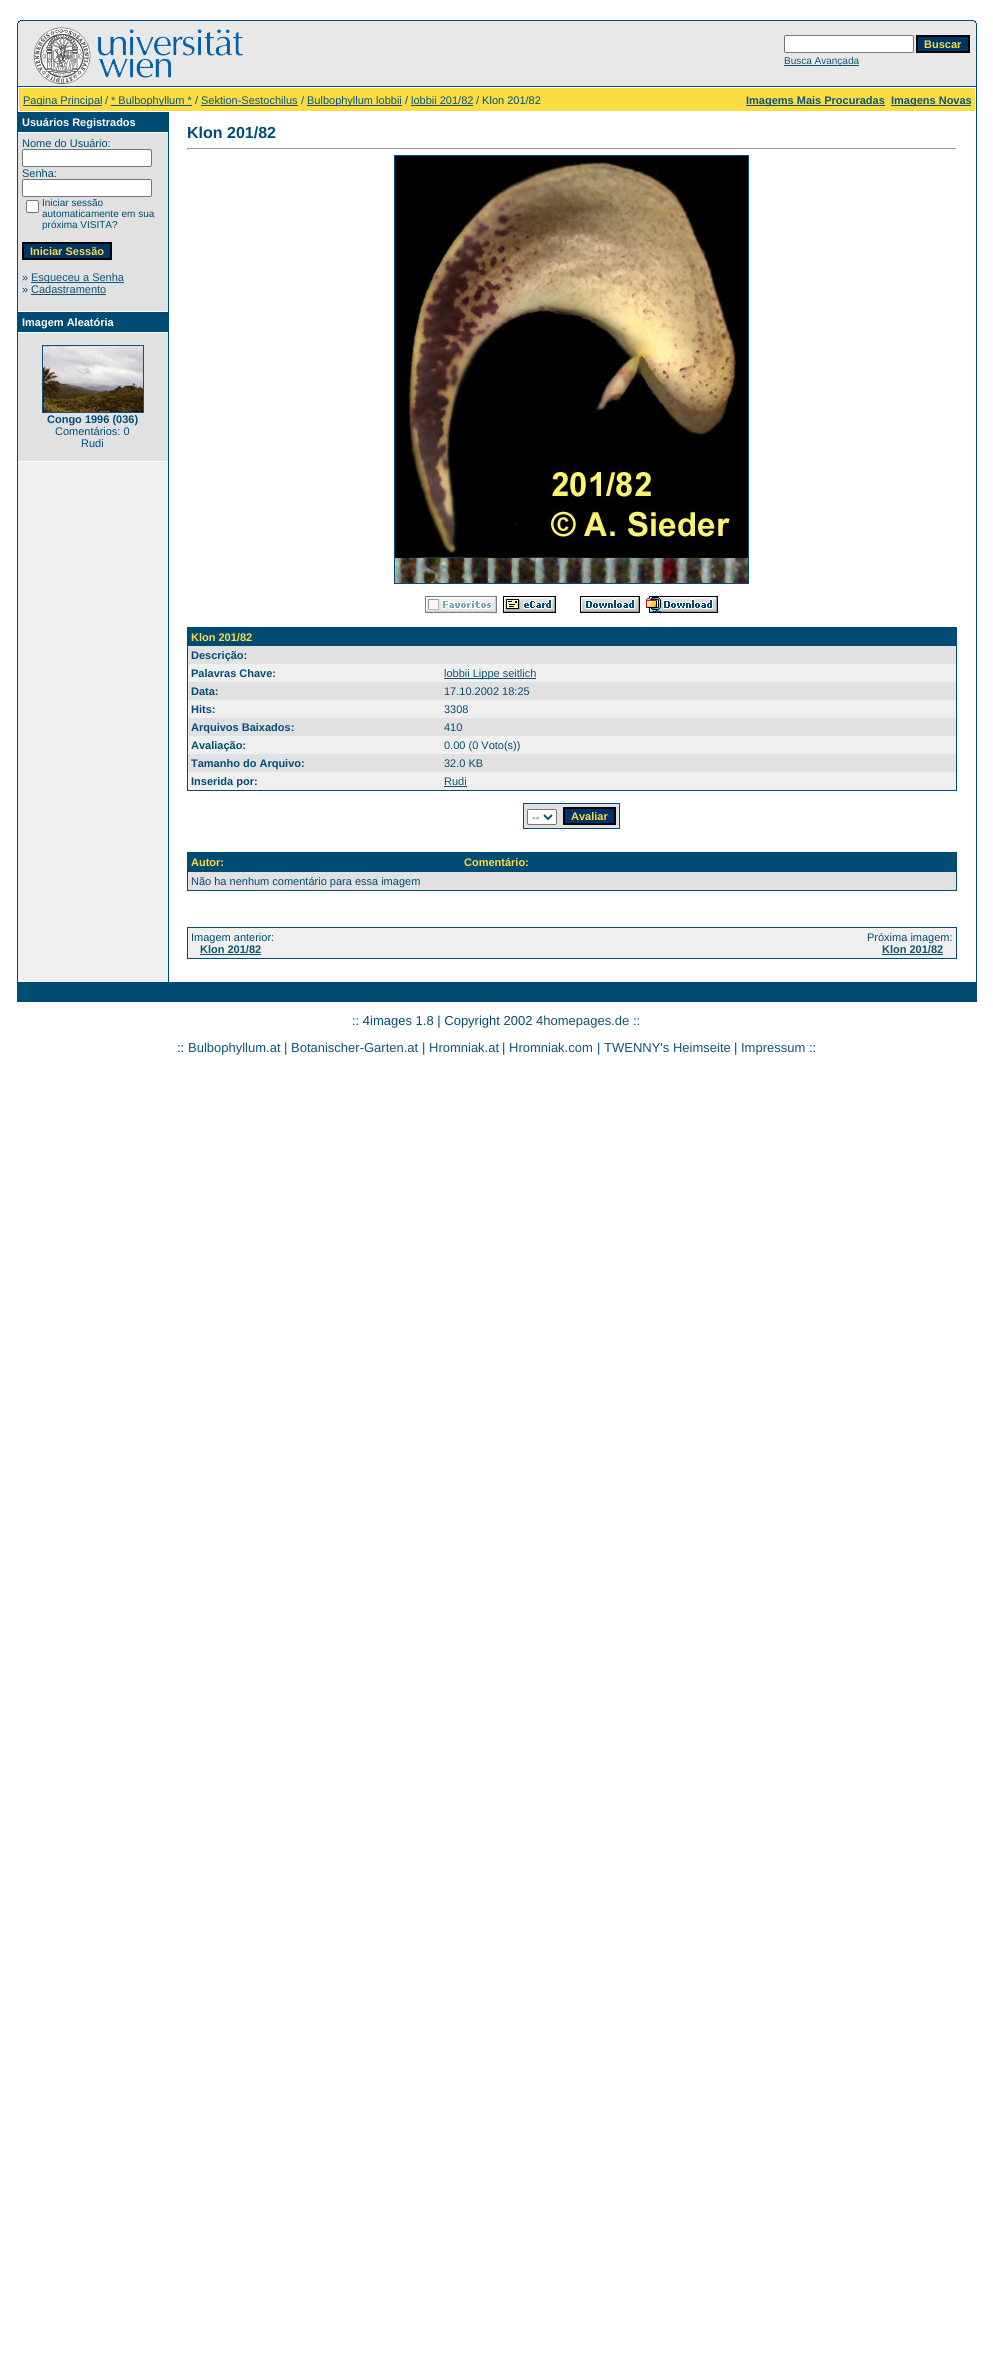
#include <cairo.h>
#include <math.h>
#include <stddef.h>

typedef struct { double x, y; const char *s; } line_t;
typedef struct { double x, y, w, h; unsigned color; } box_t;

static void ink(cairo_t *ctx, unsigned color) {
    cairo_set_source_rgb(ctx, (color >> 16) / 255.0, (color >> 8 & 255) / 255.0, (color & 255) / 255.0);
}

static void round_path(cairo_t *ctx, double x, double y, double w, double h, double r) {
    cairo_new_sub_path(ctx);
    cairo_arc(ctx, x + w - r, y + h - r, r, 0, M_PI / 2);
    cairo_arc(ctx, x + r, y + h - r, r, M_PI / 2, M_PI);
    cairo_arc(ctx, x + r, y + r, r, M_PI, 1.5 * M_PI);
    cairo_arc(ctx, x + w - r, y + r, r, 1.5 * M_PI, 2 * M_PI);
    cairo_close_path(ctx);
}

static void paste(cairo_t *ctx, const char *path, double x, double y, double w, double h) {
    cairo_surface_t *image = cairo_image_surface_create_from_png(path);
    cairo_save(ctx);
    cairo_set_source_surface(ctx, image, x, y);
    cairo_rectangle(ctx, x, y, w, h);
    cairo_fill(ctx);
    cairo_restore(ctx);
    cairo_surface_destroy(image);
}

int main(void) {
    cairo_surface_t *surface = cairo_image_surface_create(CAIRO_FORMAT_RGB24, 993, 2372);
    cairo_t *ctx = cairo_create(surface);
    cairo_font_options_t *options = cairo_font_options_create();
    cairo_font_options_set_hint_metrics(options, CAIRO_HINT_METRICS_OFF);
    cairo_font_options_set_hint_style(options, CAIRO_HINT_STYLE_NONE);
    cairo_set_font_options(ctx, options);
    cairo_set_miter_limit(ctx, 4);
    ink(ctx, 0xFFFFFF);
    cairo_paint(ctx);
    ink(ctx, 0xE8E8E8);
    cairo_rectangle(ctx, 17, 20, 960, 66);
    cairo_fill(ctx);
    paste(ctx, "media/1.png", 17, 20, 6, 6);
    ink(ctx, 0x004C75);
    cairo_rectangle(ctx, 23, 20, 948, 1);
    cairo_fill(ctx);
    paste(ctx, "media/2.png", 971, 20, 6, 6);
    cairo_rectangle(ctx, 17, 26, 1, 60);
    cairo_fill(ctx);
    paste(ctx, "media/3.png", 33, 27, 211, 57);
    ink(ctx, 0xFFFFFF);
    round_path(ctx, 784.5, 35.5, 129, 17, 1.5);
    cairo_fill_preserve(ctx);
    ink(ctx, 0x767676);
    cairo_set_line_width(ctx, 1);
    cairo_stroke(ctx);
    ink(ctx, 0x003366);
    cairo_rectangle(ctx, 917, 36, 52, 16);
    cairo_fill_preserve(ctx);
    ink(ctx, 0x000000);
    cairo_set_line_width(ctx, 2);
    cairo_stroke(ctx);
    cairo_select_font_face(ctx, "Liberation Sans", CAIRO_FONT_SLANT_NORMAL, CAIRO_FONT_WEIGHT_BOLD);
    cairo_set_font_size(ctx, 11);
    ink(ctx, 0xFCDC43);
    cairo_move_to(ctx, 924, 48);
    cairo_show_text(ctx, "Buscar");
    ink(ctx, 0x0F5475);
    cairo_rectangle(ctx, 784, 65, 75, 1);
    cairo_fill(ctx);
    cairo_select_font_face(ctx, "Liberation Sans", CAIRO_FONT_SLANT_NORMAL, CAIRO_FONT_WEIGHT_NORMAL);
    cairo_set_font_size(ctx, 10);
    cairo_move_to(ctx, 784, 64);
    cairo_show_text(ctx, "Busca Avançada");
    {
        static const box_t items[] = {
            {976, 26, 1, 60, 0x004C75},
            {17, 86, 960, 916, 0x004C75},
            {18, 87, 958, 895, 0xFFFFFF},
            {19, 88, 956, 23, 0xFCDC43},
            {23, 105, 79, 1, 0x0F5475},
        };
        for (size_t i = 0; i < sizeof items / sizeof *items; i++) {
            ink(ctx, items[i].color);
            cairo_rectangle(ctx, items[i].x, items[i].y, items[i].w, items[i].h);
            cairo_fill(ctx);
        }
    }
    cairo_set_font_size(ctx, 11);
    cairo_move_to(ctx, 23, 104);
    cairo_show_text(ctx, "Pagina Principal");
    ink(ctx, 0x004C75);
    cairo_move_to(ctx, 105, 104);
    cairo_show_text(ctx, "/");
    ink(ctx, 0x0F5475);
    cairo_rectangle(ctx, 111, 105, 81, 1);
    cairo_fill(ctx);
    cairo_move_to(ctx, 111, 104);
    cairo_show_text(ctx, "* Bulbophyllum *");
    ink(ctx, 0x004C75);
    cairo_move_to(ctx, 195, 104);
    cairo_show_text(ctx, "/");
    ink(ctx, 0x0F5475);
    cairo_move_to(ctx, 201, 104);
    cairo_show_text(ctx, "Sektion-Sestochilus");
    cairo_rectangle(ctx, 201, 105, 97, 1);
    cairo_fill(ctx);
    ink(ctx, 0x004C75);
    cairo_move_to(ctx, 301, 104);
    cairo_show_text(ctx, "/");
    ink(ctx, 0x0F5475);
    cairo_rectangle(ctx, 307, 105, 95, 1);
    cairo_fill(ctx);
    cairo_move_to(ctx, 307, 104);
    cairo_show_text(ctx, "Bulbophyllum lobbii");
    ink(ctx, 0x004C75);
    cairo_move_to(ctx, 405, 104);
    cairo_show_text(ctx, "/");
    ink(ctx, 0x0F5475);
    cairo_move_to(ctx, 411, 104);
    cairo_show_text(ctx, "lobbii 201/82");
    cairo_rectangle(ctx, 411, 105, 62, 1);
    cairo_fill(ctx);
    ink(ctx, 0x004C75);
    cairo_move_to(ctx, 476, 104);
    cairo_show_text(ctx, "/ Klon 201/82");
    ink(ctx, 0x0F5475);
    cairo_rectangle(ctx, 746, 105, 139, 1);
    cairo_fill(ctx);
    cairo_select_font_face(ctx, "Liberation Sans", CAIRO_FONT_SLANT_NORMAL, CAIRO_FONT_WEIGHT_BOLD);
    cairo_move_to(ctx, 746, 104);
    cairo_show_text(ctx, "Imagems Mais Procuradas");
    cairo_rectangle(ctx, 891, 105, 80, 1);
    cairo_fill(ctx);
    cairo_move_to(ctx, 891, 104);
    cairo_show_text(ctx, "Imagens Novas");
    ink(ctx, 0xEFEFEF);
    cairo_rectangle(ctx, 18, 462, 150, 520);
    cairo_fill(ctx);
    ink(ctx, 0x004C75);
    cairo_rectangle(ctx, 18, 112, 150, 20);
    cairo_fill(ctx);
    ink(ctx, 0xFFFFFF);
    cairo_move_to(ctx, 22, 126);
    cairo_show_text(ctx, "Usuários Registrados");
    ink(ctx, 0xE1E1E1);
    cairo_rectangle(ctx, 18, 133, 150, 178);
    cairo_fill(ctx);
    cairo_select_font_face(ctx, "Liberation Sans", CAIRO_FONT_SLANT_NORMAL, CAIRO_FONT_WEIGHT_NORMAL);
    ink(ctx, 0x004C75);
    cairo_move_to(ctx, 22, 147);
    cairo_show_text(ctx, "Nome do Usuário:");
    ink(ctx, 0xFFFFFF);
    round_path(ctx, 22.5, 149.5, 129, 17, 1.5);
    cairo_fill_preserve(ctx);
    ink(ctx, 0x767676);
    cairo_set_line_width(ctx, 1);
    cairo_stroke(ctx);
    ink(ctx, 0x004C75);
    cairo_move_to(ctx, 22, 177);
    cairo_show_text(ctx, "Senha:");
    ink(ctx, 0xFFFFFF);
    round_path(ctx, 22.5, 179.5, 129, 17, 1.5);
    cairo_fill_preserve(ctx);
    ink(ctx, 0x767676);
    cairo_stroke(ctx);
    ink(ctx, 0xFFFFFF);
    round_path(ctx, 26.5, 200.5, 12, 12, 1.5);
    cairo_fill_preserve(ctx);
    ink(ctx, 0x767676);
    cairo_stroke(ctx);
    cairo_set_font_size(ctx, 10);
    ink(ctx, 0x004C75);
    {
        static const line_t items[] = {
            {42, 206, "Iniciar sessão"},
            {42, 217, "automaticamente em sua"},
            {42, 228, "próxima VISITA?"},
        };
        for (size_t i = 0; i < sizeof items / sizeof *items; i++) {
            cairo_move_to(ctx, items[i].x, items[i].y);
            cairo_show_text(ctx, items[i].s);
        }
    }
    ink(ctx, 0x003366);
    cairo_rectangle(ctx, 23, 243, 88, 16);
    cairo_fill_preserve(ctx);
    ink(ctx, 0x000000);
    cairo_set_line_width(ctx, 2);
    cairo_stroke(ctx);
    cairo_select_font_face(ctx, "Liberation Sans", CAIRO_FONT_SLANT_NORMAL, CAIRO_FONT_WEIGHT_BOLD);
    cairo_set_font_size(ctx, 11);
    ink(ctx, 0xFCDC43);
    cairo_move_to(ctx, 30, 255);
    cairo_show_text(ctx, "Iniciar Sessão");
    cairo_select_font_face(ctx, "Liberation Sans", CAIRO_FONT_SLANT_NORMAL, CAIRO_FONT_WEIGHT_NORMAL);
    ink(ctx, 0x004C75);
    cairo_move_to(ctx, 22, 281);
    cairo_show_text(ctx, "»");
    ink(ctx, 0x0F5475);
    cairo_rectangle(ctx, 31, 282, 93, 1);
    cairo_fill(ctx);
    cairo_move_to(ctx, 31, 281);
    cairo_show_text(ctx, "Esqueceu a Senha");
    ink(ctx, 0x004C75);
    cairo_move_to(ctx, 22, 293);
    cairo_show_text(ctx, "»");
    ink(ctx, 0x0F5475);
    cairo_move_to(ctx, 31, 293);
    cairo_show_text(ctx, "Cadastramento");
    cairo_rectangle(ctx, 31, 294, 75, 1);
    cairo_fill(ctx);
    ink(ctx, 0x004C75);
    cairo_rectangle(ctx, 18, 312, 150, 20);
    cairo_fill(ctx);
    cairo_select_font_face(ctx, "Liberation Sans", CAIRO_FONT_SLANT_NORMAL, CAIRO_FONT_WEIGHT_BOLD);
    ink(ctx, 0xFFFFFF);
    cairo_move_to(ctx, 22, 326);
    cairo_show_text(ctx, "Imagem Aleatória");
    ink(ctx, 0xE1E1E1);
    cairo_rectangle(ctx, 18, 333, 150, 128);
    cairo_fill(ctx);
    cairo_rectangle(ctx, 42.5, 345.5, 101, 67);
    ink(ctx, 0x0F5475);
    cairo_set_line_width(ctx, 1);
    cairo_stroke(ctx);
    paste(ctx, "media/4.png", 43, 346, 100, 66);
    ink(ctx, 0x004C75);
    cairo_move_to(ctx, 47, 423);
    cairo_show_text(ctx, "Congo 1996 (036)");
    cairo_select_font_face(ctx, "Liberation Sans", CAIRO_FONT_SLANT_NORMAL, CAIRO_FONT_WEIGHT_NORMAL);
    cairo_move_to(ctx, 55, 435);
    cairo_show_text(ctx, "Comentários: 0");
    cairo_move_to(ctx, 81, 447);
    cairo_show_text(ctx, "Rudi");
    cairo_rectangle(ctx, 168, 112, 1, 870);
    cairo_fill(ctx);
    cairo_select_font_face(ctx, "Liberation Sans", CAIRO_FONT_SLANT_NORMAL, CAIRO_FONT_WEIGHT_BOLD);
    cairo_set_font_size(ctx, 16);
    cairo_move_to(ctx, 187, 138);
    cairo_show_text(ctx, "Klon 201/82");
    {
        static const box_t items[] = {
            {187, 148, 770, 1, 0x9F9F9F},
            {956, 148, 1, 2, 0xEEEEEE},
            {187, 148, 1, 2, 0x9F9F9F},
        };
        for (size_t i = 0; i < sizeof items / sizeof *items; i++) {
            ink(ctx, items[i].color);
            cairo_rectangle(ctx, items[i].x, items[i].y, items[i].w, items[i].h);
            cairo_fill(ctx);
        }
    }
    cairo_rectangle(ctx, 394.5, 155.5, 354, 428);
    ink(ctx, 0x004C75);
    cairo_stroke(ctx);
    paste(ctx, "media/5.png", 395, 156, 353, 427);
    paste(ctx, "media/6.png", 425, 596, 72, 17);
    paste(ctx, "media/7.png", 503, 596, 53, 17);
    paste(ctx, "media/8.png", 580, 596, 60, 17);
    paste(ctx, "media/9.png", 646, 596, 72, 17);
    cairo_rectangle(ctx, 187, 627, 770, 164);
    cairo_fill(ctx);
    cairo_set_font_size(ctx, 11);
    ink(ctx, 0xFCDC43);
    cairo_move_to(ctx, 191, 641);
    cairo_show_text(ctx, "Klon 201/82");
    ink(ctx, 0xE1E1E1);
    cairo_rectangle(ctx, 188, 646, 768, 18);
    cairo_fill(ctx);
    ink(ctx, 0x004C75);
    cairo_move_to(ctx, 191, 659);
    cairo_show_text(ctx, "Descrição:");
    ink(ctx, 0xEFEFEF);
    cairo_rectangle(ctx, 188, 664, 768, 18);
    cairo_fill(ctx);
    ink(ctx, 0x004C75);
    cairo_move_to(ctx, 191, 677);
    cairo_show_text(ctx, "Palavras Chave:");
    ink(ctx, 0x0F5475);
    cairo_rectangle(ctx, 444, 678, 92, 1);
    cairo_fill(ctx);
    cairo_select_font_face(ctx, "Liberation Sans", CAIRO_FONT_SLANT_NORMAL, CAIRO_FONT_WEIGHT_NORMAL);
    cairo_move_to(ctx, 444, 677);
    cairo_show_text(ctx, "lobbii Lippe seitlich");
    ink(ctx, 0xE1E1E1);
    cairo_rectangle(ctx, 188, 682, 768, 18);
    cairo_fill(ctx);
    cairo_select_font_face(ctx, "Liberation Sans", CAIRO_FONT_SLANT_NORMAL, CAIRO_FONT_WEIGHT_BOLD);
    ink(ctx, 0x004C75);
    cairo_move_to(ctx, 191, 695);
    cairo_show_text(ctx, "Data:");
    cairo_select_font_face(ctx, "Liberation Sans", CAIRO_FONT_SLANT_NORMAL, CAIRO_FONT_WEIGHT_NORMAL);
    cairo_move_to(ctx, 444, 695);
    cairo_show_text(ctx, "17.10.2002 18:25");
    ink(ctx, 0xEFEFEF);
    cairo_rectangle(ctx, 188, 700, 768, 18);
    cairo_fill(ctx);
    cairo_select_font_face(ctx, "Liberation Sans", CAIRO_FONT_SLANT_NORMAL, CAIRO_FONT_WEIGHT_BOLD);
    ink(ctx, 0x004C75);
    cairo_move_to(ctx, 191, 713);
    cairo_show_text(ctx, "Hits:");
    cairo_select_font_face(ctx, "Liberation Sans", CAIRO_FONT_SLANT_NORMAL, CAIRO_FONT_WEIGHT_NORMAL);
    cairo_move_to(ctx, 444, 713);
    cairo_show_text(ctx, "3308");
    ink(ctx, 0xE1E1E1);
    cairo_rectangle(ctx, 188, 718, 768, 18);
    cairo_fill(ctx);
    cairo_select_font_face(ctx, "Liberation Sans", CAIRO_FONT_SLANT_NORMAL, CAIRO_FONT_WEIGHT_BOLD);
    ink(ctx, 0x004C75);
    cairo_move_to(ctx, 191, 731);
    cairo_show_text(ctx, "Arquivos Baixados:");
    cairo_select_font_face(ctx, "Liberation Sans", CAIRO_FONT_SLANT_NORMAL, CAIRO_FONT_WEIGHT_NORMAL);
    cairo_move_to(ctx, 444, 731);
    cairo_show_text(ctx, "410");
    ink(ctx, 0xEFEFEF);
    cairo_rectangle(ctx, 188, 736, 768, 18);
    cairo_fill(ctx);
    cairo_select_font_face(ctx, "Liberation Sans", CAIRO_FONT_SLANT_NORMAL, CAIRO_FONT_WEIGHT_BOLD);
    ink(ctx, 0x004C75);
    cairo_move_to(ctx, 191, 749);
    cairo_show_text(ctx, "Avaliação:");
    cairo_select_font_face(ctx, "Liberation Sans", CAIRO_FONT_SLANT_NORMAL, CAIRO_FONT_WEIGHT_NORMAL);
    cairo_move_to(ctx, 444, 749);
    cairo_show_text(ctx, "0.00 (0 Voto(s))");
    ink(ctx, 0xE1E1E1);
    cairo_rectangle(ctx, 188, 754, 768, 18);
    cairo_fill(ctx);
    cairo_select_font_face(ctx, "Liberation Sans", CAIRO_FONT_SLANT_NORMAL, CAIRO_FONT_WEIGHT_BOLD);
    ink(ctx, 0x004C75);
    cairo_move_to(ctx, 191, 767);
    cairo_show_text(ctx, "Tamanho do Arquivo:");
    cairo_select_font_face(ctx, "Liberation Sans", CAIRO_FONT_SLANT_NORMAL, CAIRO_FONT_WEIGHT_NORMAL);
    cairo_move_to(ctx, 444, 767);
    cairo_show_text(ctx, "32.0 KB");
    ink(ctx, 0xEFEFEF);
    cairo_rectangle(ctx, 188, 772, 768, 18);
    cairo_fill(ctx);
    cairo_select_font_face(ctx, "Liberation Sans", CAIRO_FONT_SLANT_NORMAL, CAIRO_FONT_WEIGHT_BOLD);
    ink(ctx, 0x004C75);
    cairo_move_to(ctx, 191, 785);
    cairo_show_text(ctx, "Inserida por:");
    cairo_select_font_face(ctx, "Liberation Sans", CAIRO_FONT_SLANT_NORMAL, CAIRO_FONT_WEIGHT_NORMAL);
    ink(ctx, 0x0F5475);
    cairo_move_to(ctx, 444, 785);
    cairo_show_text(ctx, "Rudi");
    {
        static const box_t items[] = {
            {444, 786, 23, 1, 0x0F5475},
            {523, 803, 97, 26, 0x004C75},
            {524, 804, 95, 24, 0xE1E1E1},
        };
        for (size_t i = 0; i < sizeof items / sizeof *items; i++) {
            ink(ctx, items[i].color);
            cairo_rectangle(ctx, items[i].x, items[i].y, items[i].w, items[i].h);
            cairo_fill(ctx);
        }
    }
    ink(ctx, 0xFFFFFF);
    round_path(ctx, 527.5, 809.5, 29, 15, 1.5);
    cairo_fill_preserve(ctx);
    ink(ctx, 0x767676);
    cairo_stroke(ctx);
    cairo_new_path(ctx);
    cairo_move_to(ctx, 544, 815);
    cairo_line_to(ctx, 548, 819);
    cairo_line_to(ctx, 552, 815);
    ink(ctx, 0x0F5475);
    cairo_set_line_width(ctx, 2);
    cairo_stroke(ctx);
    cairo_move_to(ctx, 532, 821);
    cairo_show_text(ctx, "--");
    ink(ctx, 0x003366);
    cairo_rectangle(ctx, 564, 808, 51, 16);
    cairo_fill_preserve(ctx);
    ink(ctx, 0x000000);
    cairo_stroke(ctx);
    cairo_select_font_face(ctx, "Liberation Sans", CAIRO_FONT_SLANT_NORMAL, CAIRO_FONT_WEIGHT_BOLD);
    ink(ctx, 0xFCDC43);
    cairo_move_to(ctx, 571, 820);
    cairo_show_text(ctx, "Avaliar");
    ink(ctx, 0x004C75);
    cairo_rectangle(ctx, 187, 852, 770, 39);
    cairo_fill(ctx);
    ink(ctx, 0xFCDC43);
    cairo_move_to(ctx, 191, 866);
    cairo_show_text(ctx, "Autor:");
    cairo_move_to(ctx, 464, 866);
    cairo_show_text(ctx, "Comentário:");
    ink(ctx, 0xE1E1E1);
    cairo_rectangle(ctx, 188, 872, 768, 18);
    cairo_fill(ctx);
    cairo_select_font_face(ctx, "Liberation Sans", CAIRO_FONT_SLANT_NORMAL, CAIRO_FONT_WEIGHT_NORMAL);
    ink(ctx, 0x004C75);
    cairo_move_to(ctx, 191, 885);
    cairo_show_text(ctx, "Não ha nenhum comentário para essa imagem");
    cairo_rectangle(ctx, 187, 927, 770, 32);
    cairo_fill(ctx);
    ink(ctx, 0xEFEFEF);
    cairo_rectangle(ctx, 188, 928, 768, 30);
    cairo_fill(ctx);
    ink(ctx, 0x004C75);
    cairo_move_to(ctx, 191, 941);
    cairo_show_text(ctx, "Imagem anterior:");
    cairo_select_font_face(ctx, "Liberation Sans", CAIRO_FONT_SLANT_NORMAL, CAIRO_FONT_WEIGHT_BOLD);
    ink(ctx, 0x0F5475);
    cairo_move_to(ctx, 200, 953);
    cairo_show_text(ctx, "Klon 201/82");
    cairo_rectangle(ctx, 200, 954, 61, 1);
    cairo_fill(ctx);
    cairo_select_font_face(ctx, "Liberation Sans", CAIRO_FONT_SLANT_NORMAL, CAIRO_FONT_WEIGHT_NORMAL);
    ink(ctx, 0x004C75);
    cairo_move_to(ctx, 867, 941);
    cairo_show_text(ctx, "Próxima imagem:");
    cairo_select_font_face(ctx, "Liberation Sans", CAIRO_FONT_SLANT_NORMAL, CAIRO_FONT_WEIGHT_BOLD);
    ink(ctx, 0x0F5475);
    cairo_move_to(ctx, 882, 953);
    cairo_show_text(ctx, "Klon 201/82");
    cairo_rectangle(ctx, 882, 954, 61, 1);
    cairo_fill(ctx);
    cairo_select_font_face(ctx, "Liberation Sans", CAIRO_FONT_SLANT_NORMAL, CAIRO_FONT_WEIGHT_NORMAL);
    cairo_set_font_size(ctx, 13);
    ink(ctx, 0x004C75);
    cairo_move_to(ctx, 352, 1025);
    cairo_show_text(ctx, ":: 4images 1.8 | Copyright 2002");
    ink(ctx, 0x0F5475);
    cairo_move_to(ctx, 536, 1025);
    cairo_show_text(ctx, "4homepages.de");
    ink(ctx, 0x004C75);
    cairo_move_to(ctx, 633, 1025);
    cairo_show_text(ctx, "::");
    cairo_move_to(ctx, 177, 1052);
    cairo_show_text(ctx, "::");
    ink(ctx, 0x0F5475);
    cairo_move_to(ctx, 188, 1052);
    cairo_show_text(ctx, "Bulbophyllum.at");
    ink(ctx, 0x004C75);
    cairo_move_to(ctx, 284, 1052);
    cairo_show_text(ctx, "|");
    ink(ctx, 0x0F5475);
    cairo_move_to(ctx, 291, 1052);
    cairo_show_text(ctx, "Botanischer-Garten.at");
    ink(ctx, 0x004C75);
    cairo_move_to(ctx, 422, 1052);
    cairo_show_text(ctx, "|");
    ink(ctx, 0x0F5475);
    cairo_move_to(ctx, 429, 1052);
    cairo_show_text(ctx, "Hromniak.at");
    ink(ctx, 0x004C75);
    cairo_move_to(ctx, 502, 1052);
    cairo_show_text(ctx, "|");
    ink(ctx, 0x0F5475);
    cairo_move_to(ctx, 509, 1052);
    cairo_show_text(ctx, "Hromniak.com");
    ink(ctx, 0x004C75);
    cairo_move_to(ctx, 597, 1052);
    cairo_show_text(ctx, "|");
    ink(ctx, 0x0F5475);
    cairo_move_to(ctx, 604, 1052);
    cairo_show_text(ctx, "TWENNY's Heimseite");
    ink(ctx, 0x004C75);
    cairo_move_to(ctx, 734, 1052);
    cairo_show_text(ctx, "|");
    ink(ctx, 0x0F5475);
    cairo_move_to(ctx, 741, 1052);
    cairo_show_text(ctx, "Impressum");
    ink(ctx, 0x004C75);
    cairo_move_to(ctx, 809, 1052);
    cairo_show_text(ctx, "::");
    cairo_surface_write_to_png(surface, "image.png");
    cairo_font_options_destroy(options);
    cairo_destroy(ctx);
    cairo_surface_destroy(surface);
    return 0;
}
